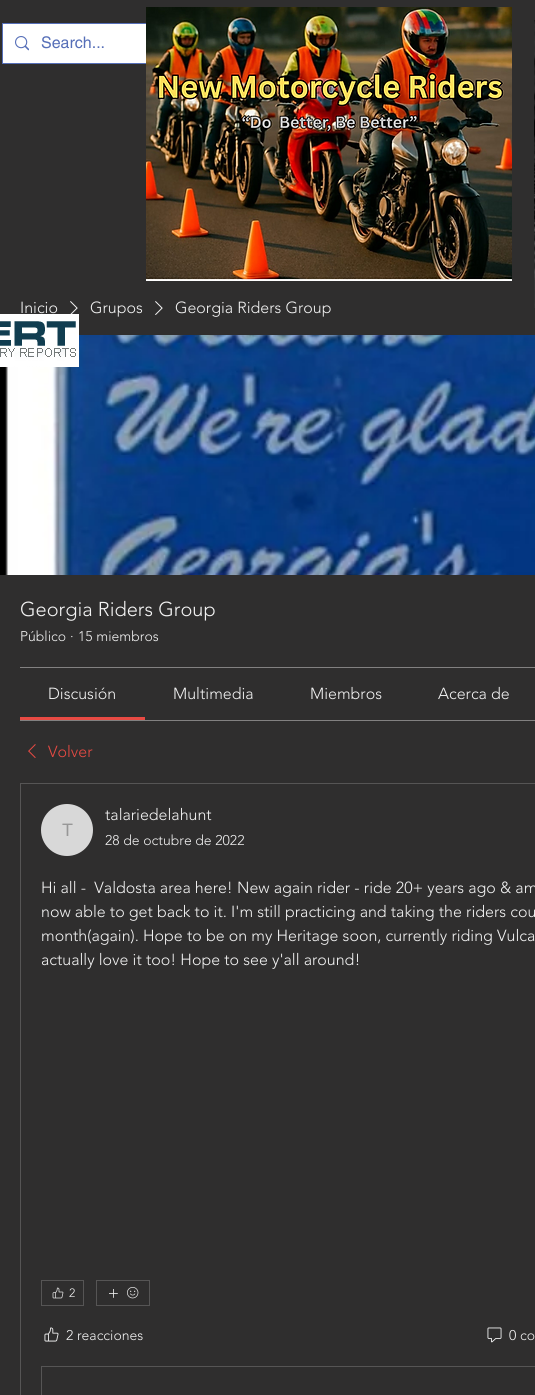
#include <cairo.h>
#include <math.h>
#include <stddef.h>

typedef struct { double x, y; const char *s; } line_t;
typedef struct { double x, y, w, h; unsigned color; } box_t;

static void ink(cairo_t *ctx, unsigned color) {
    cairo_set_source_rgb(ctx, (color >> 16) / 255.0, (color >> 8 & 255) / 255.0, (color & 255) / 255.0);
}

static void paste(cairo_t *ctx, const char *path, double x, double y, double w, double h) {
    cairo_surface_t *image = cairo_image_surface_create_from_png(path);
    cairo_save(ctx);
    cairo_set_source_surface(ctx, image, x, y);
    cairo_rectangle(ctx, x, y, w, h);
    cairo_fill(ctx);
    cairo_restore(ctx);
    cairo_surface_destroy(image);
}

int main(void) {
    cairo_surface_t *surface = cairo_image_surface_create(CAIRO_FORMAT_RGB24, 535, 1395);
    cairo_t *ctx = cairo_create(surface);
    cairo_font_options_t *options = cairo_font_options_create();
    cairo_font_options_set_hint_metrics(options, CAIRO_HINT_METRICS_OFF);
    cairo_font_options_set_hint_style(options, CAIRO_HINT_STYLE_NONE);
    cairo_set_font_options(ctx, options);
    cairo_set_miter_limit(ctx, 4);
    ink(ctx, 0x2F2E2E);
    cairo_paint(ctx);
    cairo_rectangle(ctx, 2.5, 23.5, 215, 40);
    ink(ctx, 0x566FB8);
    cairo_set_line_width(ctx, 1);
    cairo_stroke(ctx);
    ink(ctx, 0xFFFFFF);
    cairo_rectangle(ctx, 3, 24, 143, 39);
    cairo_fill(ctx);
    paste(ctx, "media/1.png", 15, 36, 14, 15);
    cairo_select_font_face(ctx, "helvetica", CAIRO_FONT_SLANT_NORMAL, CAIRO_FONT_WEIGHT_NORMAL);
    cairo_set_font_size(ctx, 16);
    ink(ctx, 0x566FB8);
    cairo_move_to(ctx, 41, 48);
    cairo_show_text(ctx, "Search...");
    paste(ctx, "media/2.png", 146, 7, 366, 274);
    paste(ctx, "media/3.png", 534, 20, 1, 288);
    paste(ctx, "media/7.png", 0, 335, 535, 240);
    paste(ctx, "media/4.png", 0, 314, 79, 53);
    cairo_select_font_face(ctx, "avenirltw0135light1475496 Light", CAIRO_FONT_SLANT_NORMAL, CAIRO_FONT_WEIGHT_NORMAL);
    ink(ctx, 0xF2F2F2);
    cairo_move_to(ctx, 20, 313);
    cairo_show_text(ctx, "Inicio");
    paste(ctx, "media/5.png", 70, 301, 8, 13);
    cairo_move_to(ctx, 90, 313);
    cairo_show_text(ctx, "Grupos");
    paste(ctx, "media/6.png", 155, 301, 8, 14);
    cairo_move_to(ctx, 175, 313);
    cairo_show_text(ctx, "Georgia Riders Group");
    cairo_set_font_size(ctx, 20);
    cairo_move_to(ctx, 20, 616);
    cairo_show_text(ctx, "Georgia Riders Group");
    cairo_set_font_size(ctx, 14);
    {
        static const line_t items[] = {
            {20, 641, "Público"},
            {70, 641, "·"},
            {78, 641, "15 miembros"},
        };
        for (size_t i = 0; i < sizeof items / sizeof *items; i++) {
            cairo_move_to(ctx, items[i].x, items[i].y);
            cairo_show_text(ctx, items[i].s);
        }
    }
    {
        static const box_t items[] = {
            {20, 667, 515, 1, 0x828181},
            {20, 720, 515, 1, 0x828181},
            {20, 717, 125, 3, 0xE84A43},
        };
        for (size_t i = 0; i < sizeof items / sizeof *items; i++) {
            ink(ctx, items[i].color);
            cairo_rectangle(ctx, items[i].x, items[i].y, items[i].w, items[i].h);
            cairo_fill(ctx);
        }
    }
    cairo_set_font_size(ctx, 16);
    ink(ctx, 0xF2F2F2);
    {
        static const line_t items[] = {
            {48, 699, "Discusión"},
            {173, 699, "Multimedia"},
            {310, 699, "Miembros"},
            {438, 699, "Acerca de"},
        };
        for (size_t i = 0; i < sizeof items / sizeof *items; i++) {
            cairo_move_to(ctx, items[i].x, items[i].y);
            cairo_show_text(ctx, items[i].s);
        }
    }
    paste(ctx, "media/8.png", 28, 744, 8, 14);
    ink(ctx, 0xE84A43);
    cairo_move_to(ctx, 48, 757);
    cairo_show_text(ctx, "Volver");
    cairo_rectangle(ctx, 20.5, 783.5, 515, 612);
    ink(ctx, 0x565555);
    cairo_stroke(ctx);
    ink(ctx, 0xD8D8D8);
    cairo_arc(ctx, 67, 830, 26, 0, 2 * M_PI);
    cairo_fill(ctx);
    cairo_select_font_face(ctx, "Liberation Sans", CAIRO_FONT_SLANT_NORMAL, CAIRO_FONT_WEIGHT_NORMAL);
    cairo_set_font_size(ctx, 18);
    ink(ctx, 0x979797);
    cairo_move_to(ctx, 62, 836);
    cairo_show_text(ctx, "T");
    cairo_select_font_face(ctx, "avenirltw0135light1475496 Light", CAIRO_FONT_SLANT_NORMAL, CAIRO_FONT_WEIGHT_NORMAL);
    cairo_set_font_size(ctx, 16);
    ink(ctx, 0xF2F2F2);
    cairo_move_to(ctx, 105, 820);
    cairo_show_text(ctx, "talariedelahunt");
    cairo_set_font_size(ctx, 14);
    cairo_move_to(ctx, 105, 845);
    cairo_show_text(ctx, "28 de octubre de 2022");
    cairo_set_font_size(ctx, 16);
    {
        static const line_t items[] = {
            {41, 893, "Hi all -  Valdosta area here! New again rider - ride 20+ years ago & am"},
            {41, 917, "now able to get back to it. I'm still practicing and taking the riders cou"},
            {41, 941, "month(again). Hope to be on my Heritage soon, currently riding Vulca"},
            {41, 965, "actually love it too! Hope to see y'all around!"},
        };
        for (size_t i = 0; i < sizeof items / sizeof *items; i++) {
            cairo_move_to(ctx, items[i].x, items[i].y);
            cairo_show_text(ctx, items[i].s);
        }
    }
    cairo_rectangle(ctx, 41.5, 1280.5, 42, 25);
    ink(ctx, 0x565555);
    cairo_stroke(ctx);
    paste(ctx, "media/9.png", 52, 1287, 12, 12);
    cairo_set_font_size(ctx, 12);
    ink(ctx, 0xF2F2F2);
    cairo_move_to(ctx, 69, 1297);
    cairo_show_text(ctx, "2");
    cairo_rectangle(ctx, 96.5, 1280.5, 53, 25);
    ink(ctx, 0x565555);
    cairo_stroke(ctx);
    paste(ctx, "media/10.png", 109, 1289, 9, 9);
    paste(ctx, "media/11.png", 127, 1287, 12, 12);
    paste(ctx, "media/12.png", 44, 1327, 15, 15);
    cairo_set_font_size(ctx, 14);
    ink(ctx, 0xF2F2F2);
    cairo_move_to(ctx, 66, 1340);
    cairo_show_text(ctx, "2 reacciones");
    paste(ctx, "media/13.png", 487, 1327, 15, 16);
    cairo_move_to(ctx, 509, 1340);
    cairo_show_text(ctx, "0 co");
    cairo_rectangle(ctx, 41.5, 1366.5, 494, 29);
    ink(ctx, 0x565555);
    cairo_stroke(ctx);
    cairo_surface_write_to_png(surface, "image.png");
    cairo_font_options_destroy(options);
    cairo_destroy(ctx);
    cairo_surface_destroy(surface);
    return 0;
}
